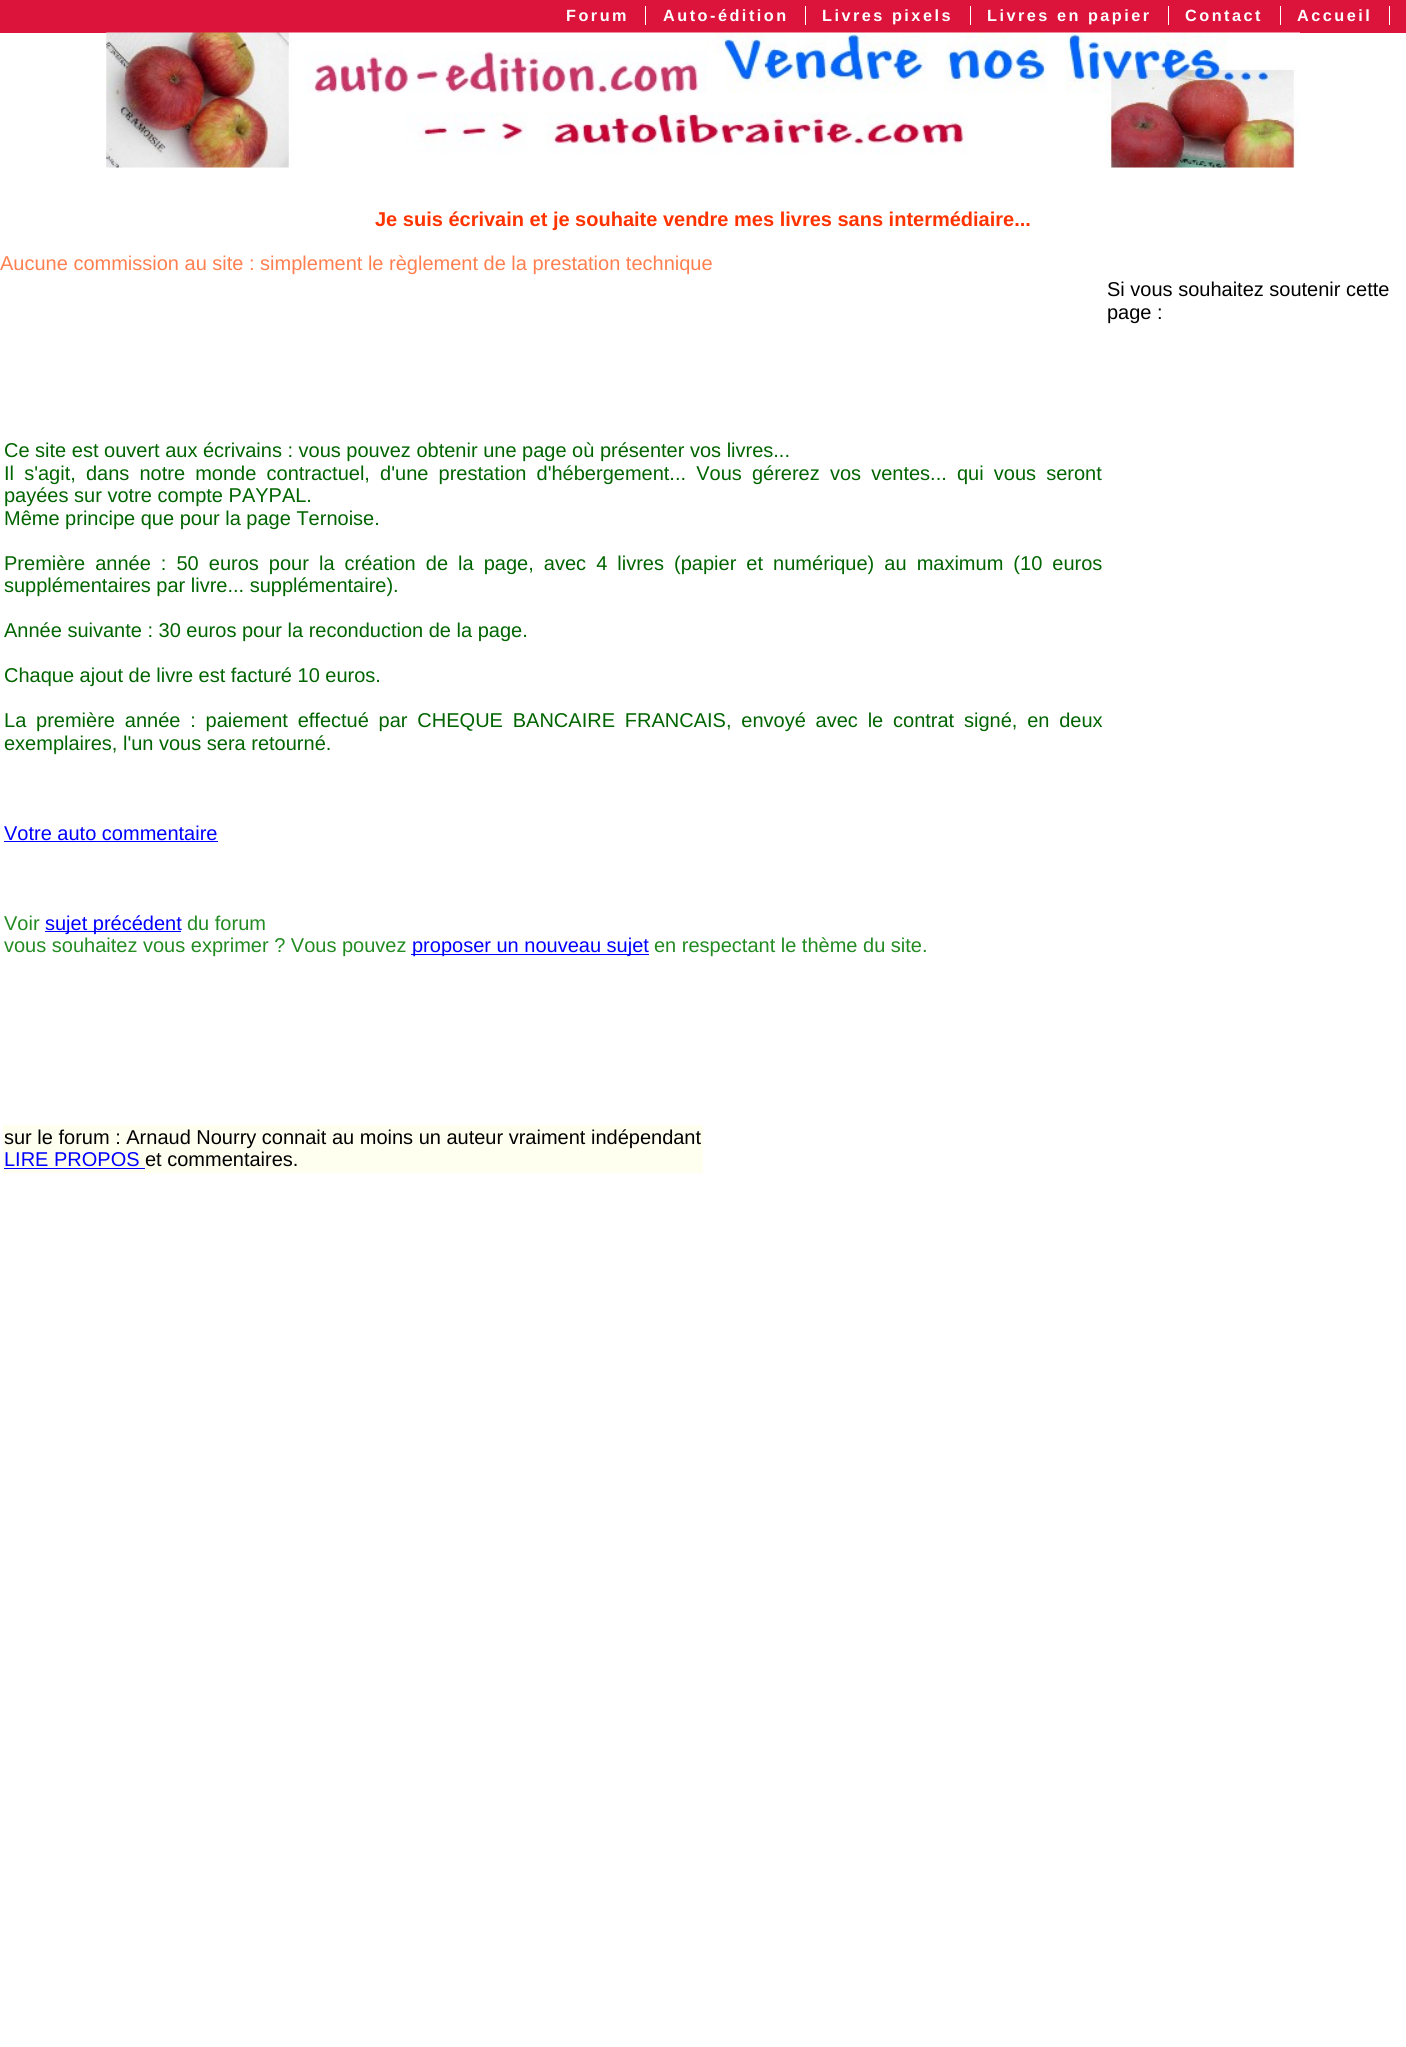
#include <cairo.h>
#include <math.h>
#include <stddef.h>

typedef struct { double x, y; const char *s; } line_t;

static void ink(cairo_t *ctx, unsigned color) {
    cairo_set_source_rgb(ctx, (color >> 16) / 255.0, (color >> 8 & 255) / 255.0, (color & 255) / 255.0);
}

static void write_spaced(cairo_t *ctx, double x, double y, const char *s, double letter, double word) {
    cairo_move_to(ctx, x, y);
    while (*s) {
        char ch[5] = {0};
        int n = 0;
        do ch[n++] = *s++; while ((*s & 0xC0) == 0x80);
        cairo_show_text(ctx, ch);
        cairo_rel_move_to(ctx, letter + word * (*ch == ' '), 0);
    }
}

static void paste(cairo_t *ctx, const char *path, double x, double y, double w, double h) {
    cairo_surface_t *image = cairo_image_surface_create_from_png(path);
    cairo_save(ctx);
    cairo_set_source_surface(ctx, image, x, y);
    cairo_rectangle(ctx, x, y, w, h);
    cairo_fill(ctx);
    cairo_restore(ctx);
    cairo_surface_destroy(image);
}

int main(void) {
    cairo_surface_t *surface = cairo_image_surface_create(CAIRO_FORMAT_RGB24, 1406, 2047);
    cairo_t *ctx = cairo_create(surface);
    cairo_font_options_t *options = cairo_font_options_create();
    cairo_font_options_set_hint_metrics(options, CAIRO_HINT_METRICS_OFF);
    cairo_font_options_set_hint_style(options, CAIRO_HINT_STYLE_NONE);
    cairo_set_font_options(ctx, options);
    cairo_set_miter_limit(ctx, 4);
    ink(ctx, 0xFFFFFF);
    cairo_paint(ctx);
    ink(ctx, 0xDC143C);
    cairo_rectangle(ctx, 0, 0, 1406, 33);
    cairo_fill(ctx);
    cairo_select_font_face(ctx, "Liberation Sans", CAIRO_FONT_SLANT_NORMAL, CAIRO_FONT_WEIGHT_BOLD);
    cairo_set_font_size(ctx, 16.25);
    ink(ctx, 0xFFFFFF);
    write_spaced(ctx, 566, 21, "Forum", 2.5, 0);
    cairo_rectangle(ctx, 645, 6, 1, 19);
    cairo_fill(ctx);
    write_spaced(ctx, 663, 21, "Auto-édition", 2.5, 0);
    cairo_rectangle(ctx, 805, 6, 1, 19);
    cairo_fill(ctx);
    write_spaced(ctx, 822, 21, "Livres pixels", 2.5, 0);
    cairo_rectangle(ctx, 970, 6, 1, 19);
    cairo_fill(ctx);
    write_spaced(ctx, 987, 21, "Livres en papier", 2.5, 0);
    cairo_rectangle(ctx, 1168, 6, 1, 19);
    cairo_fill(ctx);
    write_spaced(ctx, 1185, 21, "Contact", 2.5, 0);
    cairo_rectangle(ctx, 1280, 6, 1, 19);
    cairo_fill(ctx);
    write_spaced(ctx, 1297, 21, "Accueil", 2.5, 0);
    cairo_rectangle(ctx, 1389, 6, 1, 19);
    cairo_fill(ctx);
    paste(ctx, "media/1.png", 106, 32, 1194, 136);
    cairo_set_font_size(ctx, 20);
    ink(ctx, 0xFF3300);
    cairo_move_to(ctx, 375, 226);
    cairo_show_text(ctx, "Je suis écrivain et je souhaite vendre mes livres sans intermédiaire...");
    cairo_select_font_face(ctx, "Liberation Sans", CAIRO_FONT_SLANT_NORMAL, CAIRO_FONT_WEIGHT_NORMAL);
    ink(ctx, 0xFF7F50);
    cairo_move_to(ctx, 0, 270);
    cairo_show_text(ctx, "Aucune commission au site : simplement le règlement de la prestation technique");
    ink(ctx, 0x000000);
    cairo_move_to(ctx, 1107, 296);
    cairo_show_text(ctx, "Si vous souhaitez soutenir cette");
    cairo_move_to(ctx, 1107, 319);
    cairo_show_text(ctx, "page :");
    ink(ctx, 0x006400);
    cairo_move_to(ctx, 4, 457);
    cairo_show_text(ctx, "Ce site est ouvert aux écrivains : vous pouvez obtenir une page où présenter vos livres...");
    write_spaced(ctx, 4, 480, "Il s'agit, dans notre monde contractuel, d'une prestation d'hébergement... Vous gérerez vos ventes... qui vous seront", 0, 4.6);
    cairo_move_to(ctx, 4, 502);
    cairo_show_text(ctx, "payées sur votre compte PAYPAL.");
    cairo_move_to(ctx, 4, 525);
    cairo_show_text(ctx, "Même principe que pour la page Ternoise.");
    write_spaced(ctx, 4, 570, "Première année : 50 euros pour la création de la page, avec 4 livres (papier et numérique) au maximum (10 euros", 0, 4.5);
    {
        static const line_t items[] = {
            {4, 592, "supplémentaires par livre... supplémentaire)."},
            {4, 637, "Année suivante : 30 euros pour la reconduction de la page."},
            {4, 682, "Chaque ajout de livre est facturé 10 euros."},
        };
        for (size_t i = 0; i < sizeof items / sizeof *items; i++) {
            cairo_move_to(ctx, items[i].x, items[i].y);
            cairo_show_text(ctx, items[i].s);
        }
    }
    write_spaced(ctx, 4, 727, "La première année : paiement effectué par CHEQUE BANCAIRE FRANCAIS, envoyé avec le contrat signé, en deux", 0, 4.25);
    cairo_move_to(ctx, 4, 750);
    cairo_show_text(ctx, "exemplaires, l'un vous sera retourné.");
    ink(ctx, 0x0000FF);
    cairo_move_to(ctx, 4, 840);
    cairo_show_text(ctx, "Votre auto commentaire");
    cairo_rectangle(ctx, 4, 841, 214, 1);
    cairo_fill(ctx);
    ink(ctx, 0x228B22);
    cairo_move_to(ctx, 4, 930);
    cairo_show_text(ctx, "Voir");
    ink(ctx, 0x0000FF);
    cairo_rectangle(ctx, 45, 931, 136, 1);
    cairo_fill(ctx);
    cairo_move_to(ctx, 45, 930);
    cairo_show_text(ctx, "sujet précédent");
    ink(ctx, 0x228B22);
    cairo_move_to(ctx, 187, 930);
    cairo_show_text(ctx, "du forum");
    cairo_move_to(ctx, 4, 952);
    cairo_show_text(ctx, "vous souhaitez vous exprimer ? Vous pouvez");
    ink(ctx, 0x0000FF);
    cairo_rectangle(ctx, 411, 954, 238, 1);
    cairo_fill(ctx);
    cairo_move_to(ctx, 412, 952);
    cairo_show_text(ctx, "proposer un nouveau sujet");
    ink(ctx, 0x228B22);
    cairo_move_to(ctx, 654, 952);
    cairo_show_text(ctx, "en respectant le thème du site.");
    ink(ctx, 0xFFFFF0);
    cairo_rectangle(ctx, 3, 1125, 700, 48);
    cairo_fill(ctx);
    ink(ctx, 0x000000);
    cairo_move_to(ctx, 4, 1144);
    cairo_show_text(ctx, "sur le forum : Arnaud Nourry connait au moins un auteur vraiment indépendant");
    ink(ctx, 0x0000FF);
    cairo_move_to(ctx, 4, 1166);
    cairo_show_text(ctx, "LIRE PROPOS");
    cairo_rectangle(ctx, 4, 1168, 141, 1);
    cairo_fill(ctx);
    ink(ctx, 0x000000);
    cairo_move_to(ctx, 145, 1166);
    cairo_show_text(ctx, "et commentaires.");
    cairo_surface_write_to_png(surface, "image.png");
    cairo_font_options_destroy(options);
    cairo_destroy(ctx);
    cairo_surface_destroy(surface);
    return 0;
}
